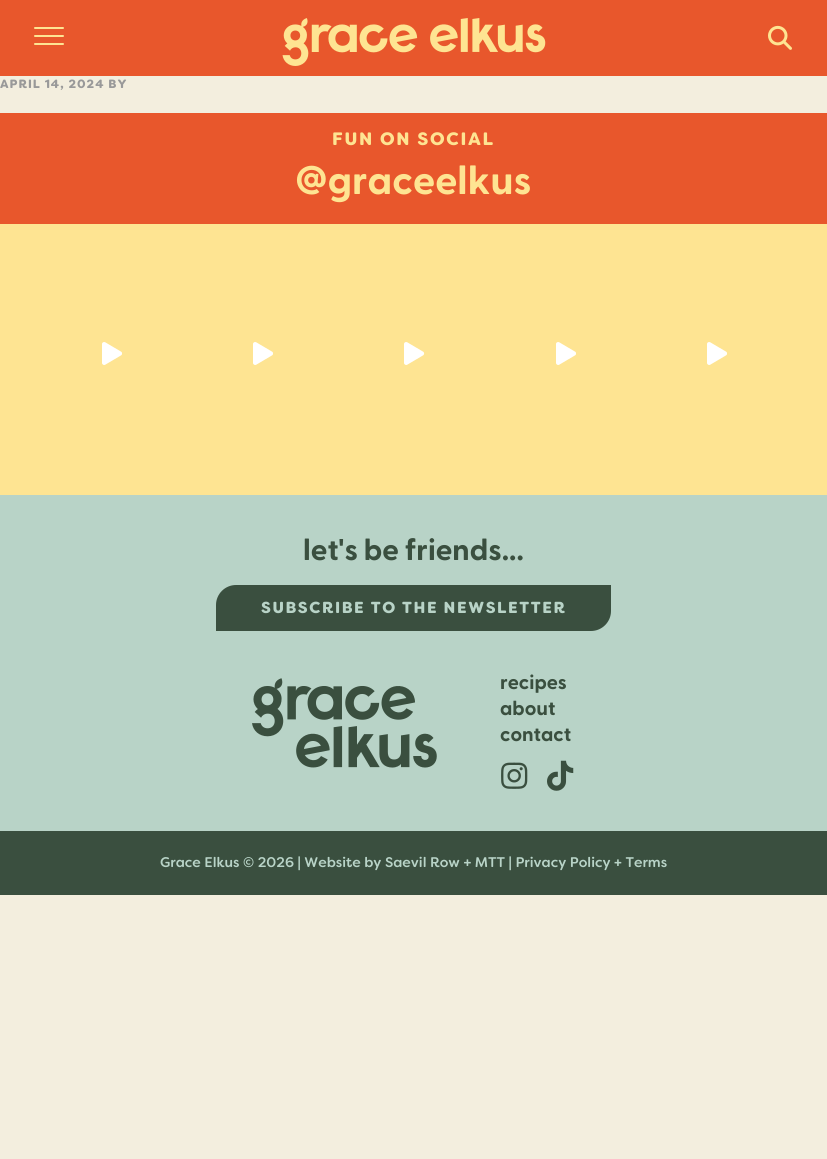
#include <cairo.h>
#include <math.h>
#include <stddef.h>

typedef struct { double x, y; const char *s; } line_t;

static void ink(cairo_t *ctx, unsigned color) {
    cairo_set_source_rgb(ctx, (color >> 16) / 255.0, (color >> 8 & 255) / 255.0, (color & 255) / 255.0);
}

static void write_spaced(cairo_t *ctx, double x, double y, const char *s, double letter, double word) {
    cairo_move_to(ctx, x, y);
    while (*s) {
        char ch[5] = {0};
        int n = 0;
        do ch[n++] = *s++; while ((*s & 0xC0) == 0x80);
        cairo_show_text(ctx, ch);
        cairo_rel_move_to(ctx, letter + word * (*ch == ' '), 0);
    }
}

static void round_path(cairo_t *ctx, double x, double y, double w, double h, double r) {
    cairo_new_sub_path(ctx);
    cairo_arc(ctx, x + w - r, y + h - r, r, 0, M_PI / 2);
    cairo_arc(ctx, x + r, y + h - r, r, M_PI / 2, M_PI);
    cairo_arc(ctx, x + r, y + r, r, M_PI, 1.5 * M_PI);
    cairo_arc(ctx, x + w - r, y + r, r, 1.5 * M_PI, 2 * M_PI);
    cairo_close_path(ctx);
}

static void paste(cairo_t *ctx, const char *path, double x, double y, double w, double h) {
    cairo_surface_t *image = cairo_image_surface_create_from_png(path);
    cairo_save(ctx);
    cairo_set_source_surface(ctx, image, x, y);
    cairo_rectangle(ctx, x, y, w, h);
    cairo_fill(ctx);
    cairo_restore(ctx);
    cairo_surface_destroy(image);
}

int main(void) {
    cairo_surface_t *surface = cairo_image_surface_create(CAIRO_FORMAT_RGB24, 827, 1159);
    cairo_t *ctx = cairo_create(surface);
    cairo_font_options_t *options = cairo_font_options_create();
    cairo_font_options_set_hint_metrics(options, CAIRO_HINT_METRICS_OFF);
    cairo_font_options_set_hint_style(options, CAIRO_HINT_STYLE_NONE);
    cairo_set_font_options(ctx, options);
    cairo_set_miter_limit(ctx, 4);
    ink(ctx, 0xF3EEDE);
    cairo_paint(ctx);
    ink(ctx, 0xE8572C);
    cairo_rectangle(ctx, 0, 0, 827, 76);
    cairo_fill(ctx);
    ink(ctx, 0xFEE492);
    round_path(ctx, 34, 35, 30, 2, 1);
    cairo_fill(ctx);
    round_path(ctx, 34, 27, 30, 2, 1);
    cairo_fill(ctx);
    round_path(ctx, 34, 43, 30, 2, 1);
    cairo_fill(ctx);
    paste(ctx, "media/1.png", 282, 18, 264, 48);
    paste(ctx, "media/2.png", 768, 25, 24, 25);
    cairo_select_font_face(ctx, "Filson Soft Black", CAIRO_FONT_SLANT_NORMAL, CAIRO_FONT_WEIGHT_NORMAL);
    cairo_set_font_size(ctx, 12);
    ink(ctx, 0x999999);
    write_spaced(ctx, 0, 88, "APRIL 14, 2024 BY", 1, 0);
    ink(ctx, 0xE8572C);
    cairo_rectangle(ctx, 0, 113, 827, 111);
    cairo_fill(ctx);
    cairo_set_font_size(ctx, 18);
    ink(ctx, 0xFEE492);
    write_spaced(ctx, 332, 145, "FUN ON SOCIAL", 1.75, 0);
    cairo_select_font_face(ctx, "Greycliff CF", CAIRO_FONT_SLANT_NORMAL, CAIRO_FONT_WEIGHT_BOLD);
    cairo_set_font_size(ctx, 40);
    cairo_move_to(ctx, 295, 194);
    cairo_show_text(ctx, "@graceelkus");
    cairo_rectangle(ctx, 0, 224, 827, 271);
    cairo_fill(ctx);
    paste(ctx, "media/3.png", 102, 342, 20, 23);
    paste(ctx, "media/3.png", 253, 342, 20, 23);
    paste(ctx, "media/4.png", 404, 342, 21, 23);
    paste(ctx, "media/3.png", 556, 342, 20, 23);
    paste(ctx, "media/3.png", 707, 342, 20, 23);
    ink(ctx, 0xB8D3C7);
    cairo_rectangle(ctx, 0, 495, 827, 336);
    cairo_fill(ctx);
    cairo_set_font_size(ctx, 30);
    ink(ctx, 0x3A4F3F);
    cairo_move_to(ctx, 303, 560);
    cairo_show_text(ctx, "let's be friends...");
    cairo_new_path(ctx);
    cairo_move_to(ctx, 236, 585);
    cairo_line_to(ctx, 611, 585);
    cairo_line_to(ctx, 611, 611);
    cairo_curve_to(ctx, 611, 622, 602, 631, 591, 631);
    cairo_line_to(ctx, 216, 631);
    cairo_line_to(ctx, 216, 605);
    cairo_curve_to(ctx, 216, 594, 225, 585, 236, 585);
    cairo_close_path(ctx);
    cairo_fill(ctx);
    cairo_select_font_face(ctx, "Filson Soft Black", CAIRO_FONT_SLANT_NORMAL, CAIRO_FONT_WEIGHT_NORMAL);
    cairo_set_font_size(ctx, 16);
    ink(ctx, 0xB8D3C7);
    write_spaced(ctx, 261, 613, "SUBSCRIBE TO THE NEWSLETTER", 1.6, 0);
    paste(ctx, "media/5.png", 252, 678, 185, 90);
    cairo_select_font_face(ctx, "Greycliff CF", CAIRO_FONT_SLANT_NORMAL, CAIRO_FONT_WEIGHT_BOLD);
    cairo_set_font_size(ctx, 20);
    ink(ctx, 0x3A4F3F);
    {
        static const line_t items[] = {
            {500, 689, "recipes"},
            {500, 715, "about"},
            {500, 741, "contact"},
        };
        for (size_t i = 0; i < sizeof items / sizeof *items; i++) {
            cairo_move_to(ctx, items[i].x, items[i].y);
            cairo_show_text(ctx, items[i].s);
        }
    }
    paste(ctx, "media/6.png", 501, 762, 27, 27);
    paste(ctx, "media/7.png", 547, 760, 27, 31);
    cairo_rectangle(ctx, 0, 831, 827, 64);
    cairo_fill(ctx);
    cairo_select_font_face(ctx, "Filson Soft Medium", CAIRO_FONT_SLANT_NORMAL, CAIRO_FONT_WEIGHT_NORMAL);
    cairo_set_font_size(ctx, 14);
    ink(ctx, 0xB8D3C7);
    cairo_move_to(ctx, 160, 867);
    cairo_show_text(ctx, "Grace Elkus © 2026 | Website by Saevil Row + MTT | Privacy Policy + Terms");
    cairo_surface_write_to_png(surface, "image.png");
    cairo_font_options_destroy(options);
    cairo_destroy(ctx);
    cairo_surface_destroy(surface);
    return 0;
}
